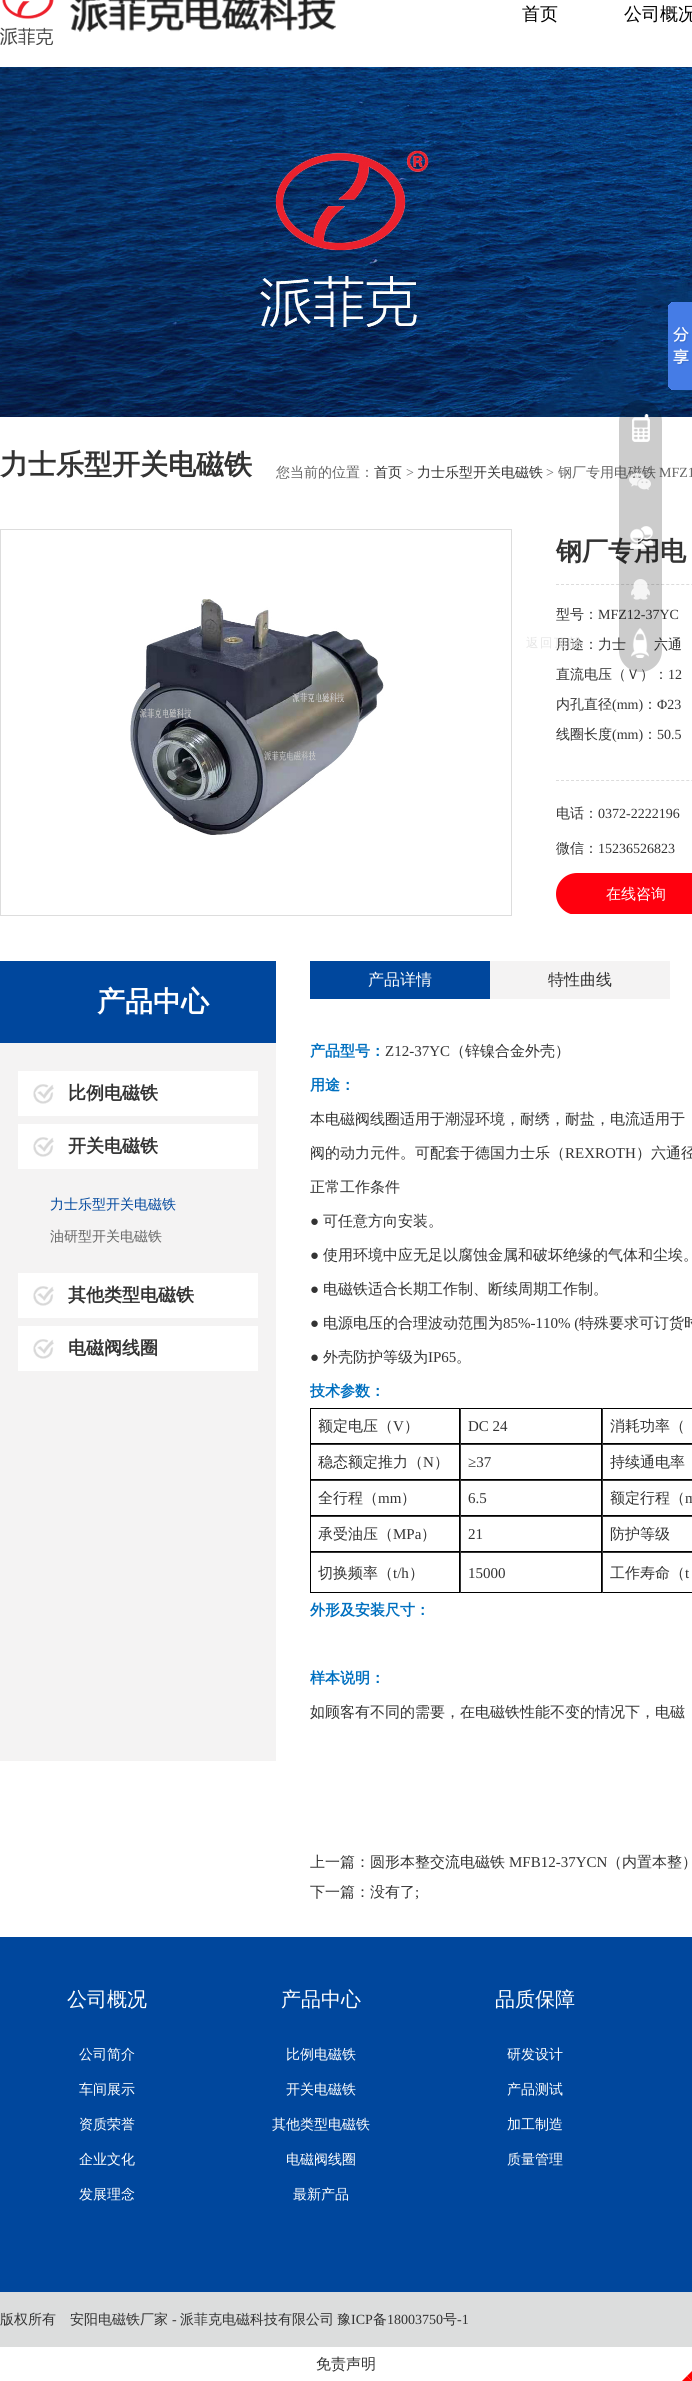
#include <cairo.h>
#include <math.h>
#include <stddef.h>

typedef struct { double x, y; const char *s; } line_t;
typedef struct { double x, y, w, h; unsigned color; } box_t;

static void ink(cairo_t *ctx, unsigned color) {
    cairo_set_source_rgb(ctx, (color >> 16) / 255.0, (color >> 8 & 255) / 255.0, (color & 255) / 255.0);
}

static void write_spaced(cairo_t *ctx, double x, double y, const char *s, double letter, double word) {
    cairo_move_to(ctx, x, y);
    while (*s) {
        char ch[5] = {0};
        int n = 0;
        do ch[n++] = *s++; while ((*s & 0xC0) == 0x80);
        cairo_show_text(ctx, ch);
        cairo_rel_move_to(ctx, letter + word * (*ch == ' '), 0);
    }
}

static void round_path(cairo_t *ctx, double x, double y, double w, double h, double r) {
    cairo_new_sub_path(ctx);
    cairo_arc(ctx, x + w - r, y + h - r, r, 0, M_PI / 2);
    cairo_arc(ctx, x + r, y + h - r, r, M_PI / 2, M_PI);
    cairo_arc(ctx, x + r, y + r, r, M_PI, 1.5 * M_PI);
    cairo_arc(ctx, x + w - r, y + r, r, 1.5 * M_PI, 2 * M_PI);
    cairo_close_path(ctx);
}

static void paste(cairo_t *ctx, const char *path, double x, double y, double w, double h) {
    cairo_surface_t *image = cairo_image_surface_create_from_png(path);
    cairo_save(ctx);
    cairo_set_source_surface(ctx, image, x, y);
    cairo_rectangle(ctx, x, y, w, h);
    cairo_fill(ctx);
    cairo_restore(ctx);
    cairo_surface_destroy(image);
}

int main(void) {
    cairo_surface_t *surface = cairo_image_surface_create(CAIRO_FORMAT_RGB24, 692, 2381);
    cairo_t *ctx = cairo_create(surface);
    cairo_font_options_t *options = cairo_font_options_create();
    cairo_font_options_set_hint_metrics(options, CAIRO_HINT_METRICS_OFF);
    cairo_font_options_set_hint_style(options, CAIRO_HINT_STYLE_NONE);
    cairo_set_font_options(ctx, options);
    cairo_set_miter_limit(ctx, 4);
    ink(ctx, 0xFFFFFF);
    cairo_paint(ctx);
    paste(ctx, "media/1.png", 0, 0, 336, 45);
    cairo_select_font_face(ctx, "WenQuanYi Zen Hei Medium", CAIRO_FONT_SLANT_NORMAL, CAIRO_FONT_WEIGHT_NORMAL);
    cairo_set_font_size(ctx, 18);
    ink(ctx, 0x000000);
    cairo_move_to(ctx, 522, 20);
    cairo_show_text(ctx, "首页");
    cairo_move_to(ctx, 624, 20);
    cairo_show_text(ctx, "公司概况");
    paste(ctx, "media/2.png", 0, 67, 692, 350);
    paste(ctx, "media/3.png", 668, 302, 24, 88);
    cairo_select_font_face(ctx, "WenQuanYi Zen Hei", CAIRO_FONT_SLANT_NORMAL, CAIRO_FONT_WEIGHT_BOLD);
    cairo_set_font_size(ctx, 28);
    ink(ctx, 0x333333);
    cairo_move_to(ctx, 0, 474);
    cairo_show_text(ctx, "力士乐型开关电磁铁");
    cairo_select_font_face(ctx, "WenQuanYi Zen Hei Medium", CAIRO_FONT_SLANT_NORMAL, CAIRO_FONT_WEIGHT_NORMAL);
    cairo_set_font_size(ctx, 14);
    ink(ctx, 0x666666);
    cairo_move_to(ctx, 276, 477);
    cairo_show_text(ctx, "您当前的位置：");
    ink(ctx, 0x333333);
    cairo_move_to(ctx, 374, 477);
    cairo_show_text(ctx, "首页");
    cairo_select_font_face(ctx, "Liberation Serif", CAIRO_FONT_SLANT_NORMAL, CAIRO_FONT_WEIGHT_NORMAL);
    ink(ctx, 0x666666);
    cairo_move_to(ctx, 406, 477);
    cairo_show_text(ctx, ">");
    cairo_select_font_face(ctx, "WenQuanYi Zen Hei Medium", CAIRO_FONT_SLANT_NORMAL, CAIRO_FONT_WEIGHT_NORMAL);
    ink(ctx, 0x333333);
    cairo_move_to(ctx, 417, 477);
    cairo_show_text(ctx, "力士乐型开关电磁铁");
    cairo_select_font_face(ctx, "Liberation Serif", CAIRO_FONT_SLANT_NORMAL, CAIRO_FONT_WEIGHT_NORMAL);
    ink(ctx, 0x666666);
    cairo_move_to(ctx, 546, 477);
    cairo_show_text(ctx, ">");
    cairo_select_font_face(ctx, "WenQuanYi Zen Hei Medium", CAIRO_FONT_SLANT_NORMAL, CAIRO_FONT_WEIGHT_NORMAL);
    cairo_move_to(ctx, 558, 477);
    cairo_show_text(ctx, "钢厂专用电磁铁");
    cairo_select_font_face(ctx, "Liberation Serif", CAIRO_FONT_SLANT_NORMAL, CAIRO_FONT_WEIGHT_NORMAL);
    cairo_move_to(ctx, 659, 477);
    cairo_show_text(ctx, "MFZ1");
    cairo_rectangle(ctx, 0.5, 529.5, 511, 386);
    ink(ctx, 0xDDDDDD);
    cairo_set_line_width(ctx, 1);
    cairo_stroke(ctx);
    paste(ctx, "media/4.png", 130, 599, 254, 236);
    cairo_select_font_face(ctx, "WenQuanYi Zen Hei", CAIRO_FONT_SLANT_NORMAL, CAIRO_FONT_WEIGHT_BOLD);
    cairo_set_font_size(ctx, 26);
    ink(ctx, 0x333333);
    cairo_move_to(ctx, 556, 560);
    cairo_show_text(ctx, "钢厂专用电");
    cairo_new_path(ctx);
    cairo_move_to(ctx, 556, 584.5);
    cairo_line_to(ctx, 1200, 584.5);
    ink(ctx, 0xDCDCDC);
    cairo_set_dash(ctx, (double[]){3, 2.01}, 2, 0);
    cairo_stroke(ctx);
    cairo_new_path(ctx);
    cairo_move_to(ctx, 556, 780.5);
    cairo_line_to(ctx, 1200, 780.5);
    cairo_stroke(ctx);
    cairo_select_font_face(ctx, "WenQuanYi Zen Hei Medium", CAIRO_FONT_SLANT_NORMAL, CAIRO_FONT_WEIGHT_NORMAL);
    cairo_set_font_size(ctx, 14);
    ink(ctx, 0x333333);
    cairo_move_to(ctx, 556, 619);
    cairo_show_text(ctx, "型号：");
    cairo_select_font_face(ctx, "Liberation Serif", CAIRO_FONT_SLANT_NORMAL, CAIRO_FONT_WEIGHT_NORMAL);
    cairo_move_to(ctx, 598, 619);
    cairo_show_text(ctx, "MFZ12-37YC");
    cairo_select_font_face(ctx, "WenQuanYi Zen Hei Medium", CAIRO_FONT_SLANT_NORMAL, CAIRO_FONT_WEIGHT_NORMAL);
    {
        static const line_t items[] = {
            {556, 649, "用途：力士"},
            {654, 649, "六通"},
            {556, 679, "直流电压（Ｖ）："},
        };
        for (size_t i = 0; i < sizeof items / sizeof *items; i++) {
            cairo_move_to(ctx, items[i].x, items[i].y);
            cairo_show_text(ctx, items[i].s);
        }
    }
    cairo_select_font_face(ctx, "Liberation Serif", CAIRO_FONT_SLANT_NORMAL, CAIRO_FONT_WEIGHT_NORMAL);
    cairo_move_to(ctx, 668, 679);
    cairo_show_text(ctx, "12");
    cairo_select_font_face(ctx, "WenQuanYi Zen Hei Medium", CAIRO_FONT_SLANT_NORMAL, CAIRO_FONT_WEIGHT_NORMAL);
    cairo_move_to(ctx, 556, 709);
    cairo_show_text(ctx, "内孔直径");
    cairo_select_font_face(ctx, "Liberation Serif", CAIRO_FONT_SLANT_NORMAL, CAIRO_FONT_WEIGHT_NORMAL);
    cairo_move_to(ctx, 612, 709);
    cairo_show_text(ctx, "(mm)");
    cairo_select_font_face(ctx, "WenQuanYi Zen Hei Medium", CAIRO_FONT_SLANT_NORMAL, CAIRO_FONT_WEIGHT_NORMAL);
    cairo_move_to(ctx, 643, 709);
    cairo_show_text(ctx, "：");
    cairo_select_font_face(ctx, "Liberation Serif", CAIRO_FONT_SLANT_NORMAL, CAIRO_FONT_WEIGHT_NORMAL);
    cairo_move_to(ctx, 657, 709);
    cairo_show_text(ctx, "Φ23");
    cairo_select_font_face(ctx, "WenQuanYi Zen Hei Medium", CAIRO_FONT_SLANT_NORMAL, CAIRO_FONT_WEIGHT_NORMAL);
    cairo_move_to(ctx, 556, 739);
    cairo_show_text(ctx, "线圈长度");
    cairo_select_font_face(ctx, "Liberation Serif", CAIRO_FONT_SLANT_NORMAL, CAIRO_FONT_WEIGHT_NORMAL);
    cairo_move_to(ctx, 612, 739);
    cairo_show_text(ctx, "(mm)");
    cairo_select_font_face(ctx, "WenQuanYi Zen Hei Medium", CAIRO_FONT_SLANT_NORMAL, CAIRO_FONT_WEIGHT_NORMAL);
    cairo_move_to(ctx, 643, 739);
    cairo_show_text(ctx, "：");
    cairo_select_font_face(ctx, "Liberation Serif", CAIRO_FONT_SLANT_NORMAL, CAIRO_FONT_WEIGHT_NORMAL);
    cairo_move_to(ctx, 657, 739);
    cairo_show_text(ctx, "50.5");
    cairo_select_font_face(ctx, "WenQuanYi Zen Hei Medium", CAIRO_FONT_SLANT_NORMAL, CAIRO_FONT_WEIGHT_NORMAL);
    cairo_move_to(ctx, 556, 818);
    cairo_show_text(ctx, "电话：");
    cairo_select_font_face(ctx, "Liberation Serif", CAIRO_FONT_SLANT_NORMAL, CAIRO_FONT_WEIGHT_NORMAL);
    cairo_move_to(ctx, 598, 818);
    cairo_show_text(ctx, "0372-2222196");
    cairo_select_font_face(ctx, "WenQuanYi Zen Hei Medium", CAIRO_FONT_SLANT_NORMAL, CAIRO_FONT_WEIGHT_NORMAL);
    cairo_move_to(ctx, 556, 853);
    cairo_show_text(ctx, "微信：");
    cairo_select_font_face(ctx, "Liberation Serif", CAIRO_FONT_SLANT_NORMAL, CAIRO_FONT_WEIGHT_NORMAL);
    cairo_move_to(ctx, 598, 853);
    cairo_show_text(ctx, "15236526823");
    cairo_save(ctx);
    cairo_rectangle(ctx, 556, 529, 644, 385);
    cairo_clip(ctx);
    ink(ctx, 0xFF000E);
    round_path(ctx, 556, 873, 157, 42, 21);
    cairo_fill(ctx);
    cairo_restore(ctx);
    cairo_select_font_face(ctx, "WenQuanYi Zen Hei Medium", CAIRO_FONT_SLANT_NORMAL, CAIRO_FONT_WEIGHT_NORMAL);
    cairo_set_font_size(ctx, 15);
    ink(ctx, 0xFFFFFF);
    cairo_move_to(ctx, 606, 899);
    cairo_show_text(ctx, "在线咨询");
    ink(ctx, 0xF4F3F3);
    cairo_rectangle(ctx, 0, 1043, 276, 718);
    cairo_fill(ctx);
    ink(ctx, 0x00479D);
    cairo_rectangle(ctx, 0, 961, 276, 82);
    cairo_fill(ctx);
    cairo_select_font_face(ctx, "WenQuanYi Zen Hei", CAIRO_FONT_SLANT_NORMAL, CAIRO_FONT_WEIGHT_BOLD);
    cairo_set_font_size(ctx, 28);
    ink(ctx, 0xFFFFFF);
    cairo_move_to(ctx, 97, 1011);
    cairo_show_text(ctx, "产品中心");
    cairo_rectangle(ctx, 18, 1071, 240, 45);
    cairo_fill(ctx);
    paste(ctx, "media/5.png", 33, 1084, 21, 20);
    cairo_set_font_size(ctx, 18);
    ink(ctx, 0x333333);
    cairo_move_to(ctx, 68, 1099);
    cairo_show_text(ctx, "比例电磁铁");
    ink(ctx, 0xFFFFFF);
    cairo_rectangle(ctx, 18, 1124, 240, 45);
    cairo_fill(ctx);
    paste(ctx, "media/5.png", 33, 1137, 21, 20);
    ink(ctx, 0x333333);
    cairo_move_to(ctx, 68, 1152);
    cairo_show_text(ctx, "开关电磁铁");
    cairo_select_font_face(ctx, "WenQuanYi Zen Hei Medium", CAIRO_FONT_SLANT_NORMAL, CAIRO_FONT_WEIGHT_NORMAL);
    cairo_set_font_size(ctx, 14);
    ink(ctx, 0x00479D);
    cairo_move_to(ctx, 50, 1209);
    cairo_show_text(ctx, "力士乐型开关电磁铁");
    ink(ctx, 0x666666);
    cairo_move_to(ctx, 50, 1241);
    cairo_show_text(ctx, "油研型开关电磁铁");
    ink(ctx, 0xFFFFFF);
    cairo_rectangle(ctx, 18, 1273, 240, 45);
    cairo_fill(ctx);
    paste(ctx, "media/5.png", 33, 1286, 21, 20);
    cairo_select_font_face(ctx, "WenQuanYi Zen Hei", CAIRO_FONT_SLANT_NORMAL, CAIRO_FONT_WEIGHT_BOLD);
    cairo_set_font_size(ctx, 18);
    ink(ctx, 0x333333);
    cairo_move_to(ctx, 68, 1301);
    cairo_show_text(ctx, "其他类型电磁铁");
    ink(ctx, 0xFFFFFF);
    cairo_rectangle(ctx, 18, 1326, 240, 45);
    cairo_fill(ctx);
    paste(ctx, "media/5.png", 33, 1339, 21, 20);
    ink(ctx, 0x333333);
    cairo_move_to(ctx, 68, 1354);
    cairo_show_text(ctx, "电磁阀线圈");
    ink(ctx, 0x00479D);
    cairo_rectangle(ctx, 310, 961, 180, 38);
    cairo_fill(ctx);
    cairo_select_font_face(ctx, "WenQuanYi Zen Hei Medium", CAIRO_FONT_SLANT_NORMAL, CAIRO_FONT_WEIGHT_NORMAL);
    cairo_set_font_size(ctx, 16);
    ink(ctx, 0xFFFFFF);
    cairo_move_to(ctx, 368, 985);
    cairo_show_text(ctx, "产品详情");
    ink(ctx, 0xF4F3F3);
    cairo_rectangle(ctx, 490, 961, 180, 38);
    cairo_fill(ctx);
    ink(ctx, 0x333333);
    cairo_move_to(ctx, 548, 985);
    cairo_show_text(ctx, "特性曲线");
    cairo_select_font_face(ctx, "WenQuanYi Zen Hei", CAIRO_FONT_SLANT_NORMAL, CAIRO_FONT_WEIGHT_BOLD);
    cairo_set_font_size(ctx, 15);
    ink(ctx, 0x0070C0);
    cairo_move_to(ctx, 310, 1056);
    cairo_show_text(ctx, "产品型号：");
    cairo_select_font_face(ctx, "Liberation Serif", CAIRO_FONT_SLANT_NORMAL, CAIRO_FONT_WEIGHT_NORMAL);
    ink(ctx, 0x333333);
    cairo_move_to(ctx, 385, 1056);
    cairo_show_text(ctx, "Z12-37YC");
    cairo_select_font_face(ctx, "WenQuanYi Zen Hei Medium", CAIRO_FONT_SLANT_NORMAL, CAIRO_FONT_WEIGHT_NORMAL);
    cairo_move_to(ctx, 450, 1056);
    cairo_show_text(ctx, "（锌镍合金外壳）");
    cairo_select_font_face(ctx, "WenQuanYi Zen Hei", CAIRO_FONT_SLANT_NORMAL, CAIRO_FONT_WEIGHT_BOLD);
    ink(ctx, 0x0070C0);
    cairo_move_to(ctx, 310, 1090);
    cairo_show_text(ctx, "用途：");
    cairo_select_font_face(ctx, "WenQuanYi Zen Hei Medium", CAIRO_FONT_SLANT_NORMAL, CAIRO_FONT_WEIGHT_NORMAL);
    ink(ctx, 0x333333);
    cairo_move_to(ctx, 310, 1124);
    cairo_show_text(ctx, "本电磁阀线圈适用于潮湿环境，耐绣，耐盐，电流适用于");
    cairo_move_to(ctx, 310, 1158);
    cairo_show_text(ctx, "阀的动力元件。可配套于德国力士乐（");
    cairo_select_font_face(ctx, "Liberation Serif", CAIRO_FONT_SLANT_NORMAL, CAIRO_FONT_WEIGHT_NORMAL);
    cairo_move_to(ctx, 565, 1158);
    cairo_show_text(ctx, "REXROTH");
    cairo_select_font_face(ctx, "WenQuanYi Zen Hei Medium", CAIRO_FONT_SLANT_NORMAL, CAIRO_FONT_WEIGHT_NORMAL);
    cairo_move_to(ctx, 636, 1158);
    cairo_show_text(ctx, "）六通径");
    cairo_move_to(ctx, 310, 1192);
    cairo_show_text(ctx, "正常工作条件");
    cairo_select_font_face(ctx, "Liberation Serif", CAIRO_FONT_SLANT_NORMAL, CAIRO_FONT_WEIGHT_NORMAL);
    cairo_move_to(ctx, 310, 1226);
    cairo_show_text(ctx, "●");
    cairo_select_font_face(ctx, "WenQuanYi Zen Hei Medium", CAIRO_FONT_SLANT_NORMAL, CAIRO_FONT_WEIGHT_NORMAL);
    cairo_move_to(ctx, 323, 1226);
    cairo_show_text(ctx, "可任意方向安装。");
    cairo_select_font_face(ctx, "Liberation Serif", CAIRO_FONT_SLANT_NORMAL, CAIRO_FONT_WEIGHT_NORMAL);
    cairo_move_to(ctx, 310, 1260);
    cairo_show_text(ctx, "●");
    cairo_select_font_face(ctx, "WenQuanYi Zen Hei Medium", CAIRO_FONT_SLANT_NORMAL, CAIRO_FONT_WEIGHT_NORMAL);
    cairo_move_to(ctx, 323, 1260);
    cairo_show_text(ctx, "使用环境中应无足以腐蚀金属和破坏绝缘的气体和尘埃。");
    cairo_select_font_face(ctx, "Liberation Serif", CAIRO_FONT_SLANT_NORMAL, CAIRO_FONT_WEIGHT_NORMAL);
    cairo_move_to(ctx, 310, 1294);
    cairo_show_text(ctx, "●");
    cairo_select_font_face(ctx, "WenQuanYi Zen Hei Medium", CAIRO_FONT_SLANT_NORMAL, CAIRO_FONT_WEIGHT_NORMAL);
    cairo_move_to(ctx, 323, 1294);
    cairo_show_text(ctx, "电磁铁适合长期工作制、断续周期工作制。");
    cairo_select_font_face(ctx, "Liberation Serif", CAIRO_FONT_SLANT_NORMAL, CAIRO_FONT_WEIGHT_NORMAL);
    cairo_move_to(ctx, 310, 1328);
    cairo_show_text(ctx, "●");
    cairo_select_font_face(ctx, "WenQuanYi Zen Hei Medium", CAIRO_FONT_SLANT_NORMAL, CAIRO_FONT_WEIGHT_NORMAL);
    cairo_move_to(ctx, 323, 1328);
    cairo_show_text(ctx, "电源电压的合理波动范围为");
    cairo_select_font_face(ctx, "Liberation Serif", CAIRO_FONT_SLANT_NORMAL, CAIRO_FONT_WEIGHT_NORMAL);
    cairo_move_to(ctx, 503, 1328);
    cairo_show_text(ctx, "85%-110% (");
    cairo_select_font_face(ctx, "WenQuanYi Zen Hei Medium", CAIRO_FONT_SLANT_NORMAL, CAIRO_FONT_WEIGHT_NORMAL);
    cairo_move_to(ctx, 579, 1328);
    cairo_show_text(ctx, "特殊要求可订货时");
    cairo_select_font_face(ctx, "Liberation Serif", CAIRO_FONT_SLANT_NORMAL, CAIRO_FONT_WEIGHT_NORMAL);
    cairo_move_to(ctx, 310, 1362);
    cairo_show_text(ctx, "●");
    cairo_select_font_face(ctx, "WenQuanYi Zen Hei Medium", CAIRO_FONT_SLANT_NORMAL, CAIRO_FONT_WEIGHT_NORMAL);
    cairo_move_to(ctx, 323, 1362);
    cairo_show_text(ctx, "外壳防护等级为");
    cairo_select_font_face(ctx, "Liberation Serif", CAIRO_FONT_SLANT_NORMAL, CAIRO_FONT_WEIGHT_NORMAL);
    cairo_move_to(ctx, 428, 1362);
    cairo_show_text(ctx, "IP65");
    cairo_select_font_face(ctx, "WenQuanYi Zen Hei Medium", CAIRO_FONT_SLANT_NORMAL, CAIRO_FONT_WEIGHT_NORMAL);
    cairo_move_to(ctx, 456, 1362);
    cairo_show_text(ctx, "。");
    cairo_select_font_face(ctx, "WenQuanYi Zen Hei", CAIRO_FONT_SLANT_NORMAL, CAIRO_FONT_WEIGHT_BOLD);
    ink(ctx, 0x0070C0);
    cairo_move_to(ctx, 310, 1396);
    cairo_show_text(ctx, "技术参数：");
    cairo_rectangle(ctx, 310.5, 1408.5, 149, 35);
    ink(ctx, 0x000000);
    cairo_set_dash(ctx, NULL, 0, 0);
    cairo_stroke(ctx);
    cairo_select_font_face(ctx, "WenQuanYi Zen Hei Medium", CAIRO_FONT_SLANT_NORMAL, CAIRO_FONT_WEIGHT_NORMAL);
    ink(ctx, 0x333333);
    cairo_move_to(ctx, 318, 1431);
    cairo_show_text(ctx, "额定电压（");
    cairo_select_font_face(ctx, "Liberation Serif", CAIRO_FONT_SLANT_NORMAL, CAIRO_FONT_WEIGHT_NORMAL);
    cairo_move_to(ctx, 393, 1431);
    cairo_show_text(ctx, "V");
    cairo_select_font_face(ctx, "WenQuanYi Zen Hei Medium", CAIRO_FONT_SLANT_NORMAL, CAIRO_FONT_WEIGHT_NORMAL);
    cairo_move_to(ctx, 404, 1431);
    cairo_show_text(ctx, "）");
    {
        static const box_t items[] = {
            {460, 1408, 232, 1, 0x000000},
            {601, 1408, 1, 36, 0x000000},
            {460, 1443, 232, 1, 0x000000},
            {460, 1408, 1, 36, 0x333333},
        };
        for (size_t i = 0; i < sizeof items / sizeof *items; i++) {
            ink(ctx, items[i].color);
            cairo_rectangle(ctx, items[i].x, items[i].y, items[i].w, items[i].h);
            cairo_fill(ctx);
        }
    }
    cairo_select_font_face(ctx, "Liberation Serif", CAIRO_FONT_SLANT_NORMAL, CAIRO_FONT_WEIGHT_NORMAL);
    cairo_move_to(ctx, 468, 1431);
    cairo_show_text(ctx, "DC 24");
    cairo_rectangle(ctx, 602, 1408, 1, 36);
    cairo_fill(ctx);
    cairo_select_font_face(ctx, "WenQuanYi Zen Hei Medium", CAIRO_FONT_SLANT_NORMAL, CAIRO_FONT_WEIGHT_NORMAL);
    cairo_move_to(ctx, 610, 1431);
    cairo_show_text(ctx, "消耗功率（");
    {
        static const box_t items[] = {
            {310, 1444, 382, 1, 0x333333},
            {459, 1444, 1, 36, 0x000000},
            {310, 1479, 150, 1, 0x000000},
            {310, 1444, 1, 36, 0x000000},
        };
        for (size_t i = 0; i < sizeof items / sizeof *items; i++) {
            ink(ctx, items[i].color);
            cairo_rectangle(ctx, items[i].x, items[i].y, items[i].w, items[i].h);
            cairo_fill(ctx);
        }
    }
    ink(ctx, 0x333333);
    cairo_move_to(ctx, 318, 1467);
    cairo_show_text(ctx, "稳态额定推力（");
    cairo_select_font_face(ctx, "Liberation Serif", CAIRO_FONT_SLANT_NORMAL, CAIRO_FONT_WEIGHT_NORMAL);
    cairo_move_to(ctx, 423, 1467);
    cairo_show_text(ctx, "N");
    cairo_select_font_face(ctx, "WenQuanYi Zen Hei Medium", CAIRO_FONT_SLANT_NORMAL, CAIRO_FONT_WEIGHT_NORMAL);
    cairo_move_to(ctx, 434, 1467);
    cairo_show_text(ctx, "）");
    {
        static const box_t items[] = {
            {601, 1444, 1, 36, 0x000000},
            {460, 1479, 232, 1, 0x000000},
            {460, 1444, 1, 36, 0x333333},
        };
        for (size_t i = 0; i < sizeof items / sizeof *items; i++) {
            ink(ctx, items[i].color);
            cairo_rectangle(ctx, items[i].x, items[i].y, items[i].w, items[i].h);
            cairo_fill(ctx);
        }
    }
    cairo_select_font_face(ctx, "Liberation Serif", CAIRO_FONT_SLANT_NORMAL, CAIRO_FONT_WEIGHT_NORMAL);
    cairo_move_to(ctx, 468, 1467);
    cairo_show_text(ctx, "≥37");
    cairo_rectangle(ctx, 602, 1444, 1, 36);
    cairo_fill(ctx);
    cairo_select_font_face(ctx, "WenQuanYi Zen Hei Medium", CAIRO_FONT_SLANT_NORMAL, CAIRO_FONT_WEIGHT_NORMAL);
    cairo_move_to(ctx, 610, 1467);
    cairo_show_text(ctx, "持续通电率");
    {
        static const box_t items[] = {
            {310, 1480, 382, 1, 0x333333},
            {459, 1480, 1, 36, 0x000000},
            {310, 1515, 150, 1, 0x000000},
            {310, 1480, 1, 36, 0x000000},
        };
        for (size_t i = 0; i < sizeof items / sizeof *items; i++) {
            ink(ctx, items[i].color);
            cairo_rectangle(ctx, items[i].x, items[i].y, items[i].w, items[i].h);
            cairo_fill(ctx);
        }
    }
    ink(ctx, 0x333333);
    cairo_move_to(ctx, 318, 1503);
    cairo_show_text(ctx, "全行程（");
    cairo_select_font_face(ctx, "Liberation Serif", CAIRO_FONT_SLANT_NORMAL, CAIRO_FONT_WEIGHT_NORMAL);
    cairo_move_to(ctx, 378, 1503);
    cairo_show_text(ctx, "mm");
    cairo_select_font_face(ctx, "WenQuanYi Zen Hei Medium", CAIRO_FONT_SLANT_NORMAL, CAIRO_FONT_WEIGHT_NORMAL);
    cairo_move_to(ctx, 401, 1503);
    cairo_show_text(ctx, "）");
    {
        static const box_t items[] = {
            {601, 1480, 1, 36, 0x000000},
            {460, 1515, 232, 1, 0x000000},
            {460, 1480, 1, 36, 0x333333},
        };
        for (size_t i = 0; i < sizeof items / sizeof *items; i++) {
            ink(ctx, items[i].color);
            cairo_rectangle(ctx, items[i].x, items[i].y, items[i].w, items[i].h);
            cairo_fill(ctx);
        }
    }
    cairo_select_font_face(ctx, "Liberation Serif", CAIRO_FONT_SLANT_NORMAL, CAIRO_FONT_WEIGHT_NORMAL);
    cairo_move_to(ctx, 468, 1503);
    cairo_show_text(ctx, "6.5");
    cairo_rectangle(ctx, 602, 1480, 1, 36);
    cairo_fill(ctx);
    cairo_select_font_face(ctx, "WenQuanYi Zen Hei Medium", CAIRO_FONT_SLANT_NORMAL, CAIRO_FONT_WEIGHT_NORMAL);
    cairo_move_to(ctx, 610, 1503);
    cairo_show_text(ctx, "额定行程（");
    cairo_select_font_face(ctx, "Liberation Serif", CAIRO_FONT_SLANT_NORMAL, CAIRO_FONT_WEIGHT_NORMAL);
    cairo_move_to(ctx, 685, 1503);
    cairo_show_text(ctx, "m");
    {
        static const box_t items[] = {
            {310, 1516, 382, 1, 0x333333},
            {459, 1516, 1, 36, 0x000000},
            {310, 1551, 150, 1, 0x000000},
            {310, 1516, 1, 36, 0x000000},
        };
        for (size_t i = 0; i < sizeof items / sizeof *items; i++) {
            ink(ctx, items[i].color);
            cairo_rectangle(ctx, items[i].x, items[i].y, items[i].w, items[i].h);
            cairo_fill(ctx);
        }
    }
    cairo_select_font_face(ctx, "WenQuanYi Zen Hei Medium", CAIRO_FONT_SLANT_NORMAL, CAIRO_FONT_WEIGHT_NORMAL);
    ink(ctx, 0x333333);
    cairo_move_to(ctx, 318, 1539);
    cairo_show_text(ctx, "承受油压（");
    cairo_select_font_face(ctx, "Liberation Serif", CAIRO_FONT_SLANT_NORMAL, CAIRO_FONT_WEIGHT_NORMAL);
    cairo_move_to(ctx, 393, 1539);
    cairo_show_text(ctx, "MPa");
    cairo_select_font_face(ctx, "WenQuanYi Zen Hei Medium", CAIRO_FONT_SLANT_NORMAL, CAIRO_FONT_WEIGHT_NORMAL);
    cairo_move_to(ctx, 421, 1539);
    cairo_show_text(ctx, "）");
    {
        static const box_t items[] = {
            {601, 1516, 1, 36, 0x000000},
            {460, 1551, 232, 1, 0x000000},
            {460, 1516, 1, 36, 0x333333},
        };
        for (size_t i = 0; i < sizeof items / sizeof *items; i++) {
            ink(ctx, items[i].color);
            cairo_rectangle(ctx, items[i].x, items[i].y, items[i].w, items[i].h);
            cairo_fill(ctx);
        }
    }
    cairo_select_font_face(ctx, "Liberation Serif", CAIRO_FONT_SLANT_NORMAL, CAIRO_FONT_WEIGHT_NORMAL);
    cairo_move_to(ctx, 468, 1539);
    cairo_show_text(ctx, "21");
    cairo_rectangle(ctx, 602, 1516, 1, 36);
    cairo_fill(ctx);
    cairo_select_font_face(ctx, "WenQuanYi Zen Hei Medium", CAIRO_FONT_SLANT_NORMAL, CAIRO_FONT_WEIGHT_NORMAL);
    cairo_move_to(ctx, 610, 1539);
    cairo_show_text(ctx, "防护等级");
    {
        static const box_t items[] = {
            {310, 1552, 382, 1, 0x333333},
            {459, 1552, 1, 41, 0x000000},
            {310, 1592, 150, 1, 0x000000},
            {310, 1552, 1, 41, 0x000000},
        };
        for (size_t i = 0; i < sizeof items / sizeof *items; i++) {
            ink(ctx, items[i].color);
            cairo_rectangle(ctx, items[i].x, items[i].y, items[i].w, items[i].h);
            cairo_fill(ctx);
        }
    }
    ink(ctx, 0x333333);
    cairo_move_to(ctx, 318, 1578);
    cairo_show_text(ctx, "切换频率（");
    cairo_select_font_face(ctx, "Liberation Serif", CAIRO_FONT_SLANT_NORMAL, CAIRO_FONT_WEIGHT_NORMAL);
    cairo_move_to(ctx, 393, 1578);
    cairo_show_text(ctx, "t/h");
    cairo_select_font_face(ctx, "WenQuanYi Zen Hei Medium", CAIRO_FONT_SLANT_NORMAL, CAIRO_FONT_WEIGHT_NORMAL);
    cairo_move_to(ctx, 409, 1578);
    cairo_show_text(ctx, "）");
    {
        static const box_t items[] = {
            {601, 1552, 1, 41, 0x000000},
            {460, 1592, 232, 1, 0x000000},
            {460, 1552, 1, 41, 0x333333},
        };
        for (size_t i = 0; i < sizeof items / sizeof *items; i++) {
            ink(ctx, items[i].color);
            cairo_rectangle(ctx, items[i].x, items[i].y, items[i].w, items[i].h);
            cairo_fill(ctx);
        }
    }
    cairo_select_font_face(ctx, "Liberation Serif", CAIRO_FONT_SLANT_NORMAL, CAIRO_FONT_WEIGHT_NORMAL);
    cairo_move_to(ctx, 468, 1578);
    cairo_show_text(ctx, "15000");
    cairo_rectangle(ctx, 602, 1552, 1, 41);
    cairo_fill(ctx);
    cairo_select_font_face(ctx, "WenQuanYi Zen Hei Medium", CAIRO_FONT_SLANT_NORMAL, CAIRO_FONT_WEIGHT_NORMAL);
    cairo_move_to(ctx, 610, 1578);
    cairo_show_text(ctx, "工作寿命（");
    cairo_select_font_face(ctx, "Liberation Serif", CAIRO_FONT_SLANT_NORMAL, CAIRO_FONT_WEIGHT_NORMAL);
    cairo_move_to(ctx, 685, 1578);
    cairo_show_text(ctx, "t");
    cairo_select_font_face(ctx, "WenQuanYi Zen Hei", CAIRO_FONT_SLANT_NORMAL, CAIRO_FONT_WEIGHT_BOLD);
    ink(ctx, 0x0070C0);
    cairo_move_to(ctx, 310, 1615);
    cairo_show_text(ctx, "外形及安装尺寸：");
    cairo_move_to(ctx, 310, 1683);
    cairo_show_text(ctx, "样本说明：");
    cairo_select_font_face(ctx, "WenQuanYi Zen Hei Medium", CAIRO_FONT_SLANT_NORMAL, CAIRO_FONT_WEIGHT_NORMAL);
    ink(ctx, 0x333333);
    cairo_move_to(ctx, 310, 1717);
    cairo_show_text(ctx, "如顾客有不同的需要，在电磁铁性能不变的情况下，电磁");
    cairo_move_to(ctx, 310, 1867);
    cairo_show_text(ctx, "上一篇：圆形本整交流电磁铁");
    cairo_select_font_face(ctx, "Liberation Serif", CAIRO_FONT_SLANT_NORMAL, CAIRO_FONT_WEIGHT_NORMAL);
    cairo_move_to(ctx, 509, 1867);
    cairo_show_text(ctx, "MFB12-37YCN");
    cairo_select_font_face(ctx, "WenQuanYi Zen Hei Medium", CAIRO_FONT_SLANT_NORMAL, CAIRO_FONT_WEIGHT_NORMAL);
    cairo_move_to(ctx, 607, 1867);
    cairo_show_text(ctx, "（内置本整）");
    cairo_move_to(ctx, 310, 1897);
    cairo_show_text(ctx, "下一篇：没有了");
    cairo_select_font_face(ctx, "Liberation Serif", CAIRO_FONT_SLANT_NORMAL, CAIRO_FONT_WEIGHT_NORMAL);
    cairo_move_to(ctx, 415, 1897);
    cairo_show_text(ctx, ";");
    paste(ctx, "media/6.png", 619, 400, 43, 272);
    paste(ctx, "media/7.png", 632, 414, 18, 28);
    paste(ctx, "media/8.png", 629, 473, 22, 17);
    paste(ctx, "media/9.png", 630, 526, 23, 23);
    paste(ctx, "media/10.png", 631, 579, 19, 21);
    paste(ctx, "media/11.png", 631, 628, 18, 30);
    cairo_select_font_face(ctx, "WenQuanYi Zen Hei Medium", CAIRO_FONT_SLANT_NORMAL, CAIRO_FONT_WEIGHT_NORMAL);
    cairo_set_font_size(ctx, 12.5);
    ink(ctx, 0xE6E6E6);
    write_spaced(ctx, 526, 647, "返回顶部", 1.5, 0);
    ink(ctx, 0x00479D);
    cairo_rectangle(ctx, 0, 1937, 692, 355);
    cairo_fill(ctx);
    cairo_set_font_size(ctx, 20);
    ink(ctx, 0xFFFFFF);
    cairo_move_to(ctx, 67, 2006);
    cairo_show_text(ctx, "公司概况");
    cairo_set_font_size(ctx, 14);
    {
        static const line_t items[] = {
            {79, 2059, "公司简介"},
            {79, 2094, "车间展示"},
            {79, 2129, "资质荣誉"},
            {79, 2164, "企业文化"},
            {79, 2199, "发展理念"},
        };
        for (size_t i = 0; i < sizeof items / sizeof *items; i++) {
            cairo_move_to(ctx, items[i].x, items[i].y);
            cairo_show_text(ctx, items[i].s);
        }
    }
    cairo_set_font_size(ctx, 20);
    cairo_move_to(ctx, 281, 2006);
    cairo_show_text(ctx, "产品中心");
    cairo_set_font_size(ctx, 14);
    {
        static const line_t items[] = {
            {286, 2059, "比例电磁铁"},
            {286, 2094, "开关电磁铁"},
            {272, 2129, "其他类型电磁铁"},
            {286, 2164, "电磁阀线圈"},
            {293, 2199, "最新产品"},
        };
        for (size_t i = 0; i < sizeof items / sizeof *items; i++) {
            cairo_move_to(ctx, items[i].x, items[i].y);
            cairo_show_text(ctx, items[i].s);
        }
    }
    cairo_set_font_size(ctx, 20);
    cairo_move_to(ctx, 495, 2006);
    cairo_show_text(ctx, "品质保障");
    cairo_set_font_size(ctx, 14);
    {
        static const line_t items[] = {
            {507, 2059, "研发设计"},
            {507, 2094, "产品测试"},
            {507, 2129, "加工制造"},
            {507, 2164, "质量管理"},
        };
        for (size_t i = 0; i < sizeof items / sizeof *items; i++) {
            cairo_move_to(ctx, items[i].x, items[i].y);
            cairo_show_text(ctx, items[i].s);
        }
    }
    ink(ctx, 0xDCDDDD);
    cairo_rectangle(ctx, 0, 2292, 692, 55);
    cairo_fill(ctx);
    ink(ctx, 0x333333);
    cairo_move_to(ctx, 0, 2324);
    cairo_show_text(ctx, "版权所有　安阳电磁铁厂家");
    cairo_select_font_face(ctx, "Liberation Serif", CAIRO_FONT_SLANT_NORMAL, CAIRO_FONT_WEIGHT_NORMAL);
    cairo_move_to(ctx, 172, 2324);
    cairo_show_text(ctx, "-");
    cairo_select_font_face(ctx, "WenQuanYi Zen Hei Medium", CAIRO_FONT_SLANT_NORMAL, CAIRO_FONT_WEIGHT_NORMAL);
    cairo_move_to(ctx, 180, 2324);
    cairo_show_text(ctx, "派菲克电磁科技有限公司");
    cairo_move_to(ctx, 337, 2324);
    cairo_show_text(ctx, "豫");
    cairo_select_font_face(ctx, "Liberation Serif", CAIRO_FONT_SLANT_NORMAL, CAIRO_FONT_WEIGHT_NORMAL);
    cairo_move_to(ctx, 351, 2324);
    cairo_show_text(ctx, "ICP");
    cairo_select_font_face(ctx, "WenQuanYi Zen Hei Medium", CAIRO_FONT_SLANT_NORMAL, CAIRO_FONT_WEIGHT_NORMAL);
    cairo_move_to(ctx, 373, 2324);
    cairo_show_text(ctx, "备");
    cairo_select_font_face(ctx, "Liberation Serif", CAIRO_FONT_SLANT_NORMAL, CAIRO_FONT_WEIGHT_NORMAL);
    cairo_move_to(ctx, 387, 2324);
    cairo_show_text(ctx, "18003750");
    cairo_select_font_face(ctx, "WenQuanYi Zen Hei Medium", CAIRO_FONT_SLANT_NORMAL, CAIRO_FONT_WEIGHT_NORMAL);
    cairo_move_to(ctx, 443, 2324);
    cairo_show_text(ctx, "号");
    cairo_select_font_face(ctx, "Liberation Serif", CAIRO_FONT_SLANT_NORMAL, CAIRO_FONT_WEIGHT_NORMAL);
    cairo_move_to(ctx, 457, 2324);
    cairo_show_text(ctx, "-1");
    cairo_select_font_face(ctx, "WenQuanYi Zen Hei Medium", CAIRO_FONT_SLANT_NORMAL, CAIRO_FONT_WEIGHT_NORMAL);
    cairo_set_font_size(ctx, 15);
    cairo_move_to(ctx, 316, 2369);
    cairo_show_text(ctx, "免责声明");
    ink(ctx, 0xFF0000);
    cairo_new_path(ctx);
    cairo_move_to(ctx, 692, 2371);
    cairo_line_to(ctx, 692, 2381);
    cairo_line_to(ctx, 687, 2376);
    cairo_close_path(ctx);
    cairo_fill(ctx);
    cairo_new_path(ctx);
    cairo_move_to(ctx, 692, 2381);
    cairo_line_to(ctx, 682, 2381);
    cairo_line_to(ctx, 687, 2376);
    cairo_close_path(ctx);
    cairo_fill(ctx);
    cairo_surface_write_to_png(surface, "image.png");
    cairo_font_options_destroy(options);
    cairo_destroy(ctx);
    cairo_surface_destroy(surface);
    return 0;
}
